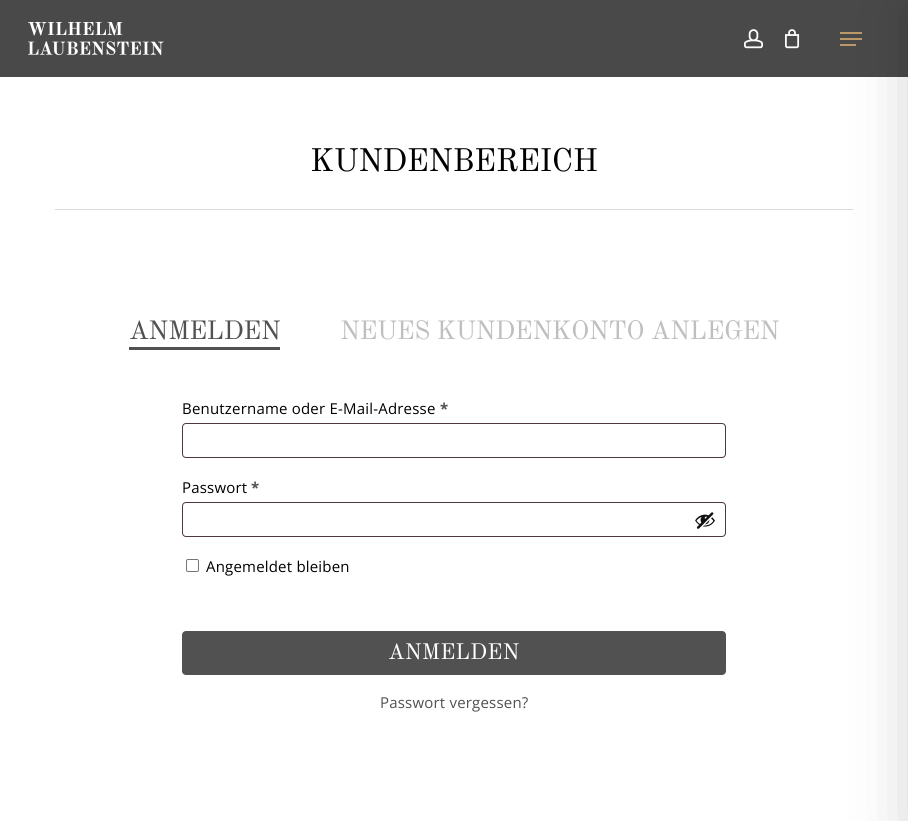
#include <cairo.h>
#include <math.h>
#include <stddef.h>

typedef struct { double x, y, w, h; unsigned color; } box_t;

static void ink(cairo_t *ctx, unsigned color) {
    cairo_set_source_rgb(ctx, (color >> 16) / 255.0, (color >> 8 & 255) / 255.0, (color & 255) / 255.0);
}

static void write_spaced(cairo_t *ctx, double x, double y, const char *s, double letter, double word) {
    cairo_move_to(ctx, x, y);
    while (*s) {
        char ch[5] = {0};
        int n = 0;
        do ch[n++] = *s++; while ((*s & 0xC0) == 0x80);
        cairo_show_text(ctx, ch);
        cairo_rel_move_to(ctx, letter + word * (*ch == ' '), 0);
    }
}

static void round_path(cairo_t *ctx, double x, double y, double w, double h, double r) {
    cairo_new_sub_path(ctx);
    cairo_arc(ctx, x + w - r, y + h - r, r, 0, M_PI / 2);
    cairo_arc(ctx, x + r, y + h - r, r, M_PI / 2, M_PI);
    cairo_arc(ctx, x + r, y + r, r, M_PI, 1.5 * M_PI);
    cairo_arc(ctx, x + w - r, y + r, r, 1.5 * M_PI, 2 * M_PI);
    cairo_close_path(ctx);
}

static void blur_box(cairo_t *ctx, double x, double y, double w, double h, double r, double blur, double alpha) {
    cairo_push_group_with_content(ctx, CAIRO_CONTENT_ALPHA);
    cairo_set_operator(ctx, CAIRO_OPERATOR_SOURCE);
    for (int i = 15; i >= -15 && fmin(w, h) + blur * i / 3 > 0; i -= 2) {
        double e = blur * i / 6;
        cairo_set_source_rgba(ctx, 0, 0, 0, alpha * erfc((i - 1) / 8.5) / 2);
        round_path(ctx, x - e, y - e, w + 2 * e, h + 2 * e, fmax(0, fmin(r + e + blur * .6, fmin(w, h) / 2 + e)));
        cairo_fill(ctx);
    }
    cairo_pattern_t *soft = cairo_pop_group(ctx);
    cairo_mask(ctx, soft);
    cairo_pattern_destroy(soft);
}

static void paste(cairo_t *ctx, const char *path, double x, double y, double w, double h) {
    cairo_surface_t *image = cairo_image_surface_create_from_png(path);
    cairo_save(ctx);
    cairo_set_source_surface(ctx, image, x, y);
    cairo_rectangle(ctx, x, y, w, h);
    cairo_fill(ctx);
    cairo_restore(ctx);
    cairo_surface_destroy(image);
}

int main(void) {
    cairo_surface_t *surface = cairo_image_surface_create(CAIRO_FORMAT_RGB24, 908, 821);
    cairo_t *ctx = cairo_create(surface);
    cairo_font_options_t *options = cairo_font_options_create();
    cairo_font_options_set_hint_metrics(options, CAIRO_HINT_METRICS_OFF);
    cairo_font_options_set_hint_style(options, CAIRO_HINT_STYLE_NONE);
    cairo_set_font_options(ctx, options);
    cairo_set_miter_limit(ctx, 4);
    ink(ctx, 0xFFFFFF);
    cairo_paint(ctx);
    ink(ctx, 0x494949);
    cairo_rectangle(ctx, 0, 0, 908, 77);
    cairo_fill(ctx);
    paste(ctx, "media/1.png", 28, 22, 136, 33);
    paste(ctx, "media/2.png", 744, 29, 19, 20);
    paste(ctx, "media/3.png", 785, 29, 15, 20);
    {
        static const box_t items[] = {
            {840, 32, 22, 2, 0xBC9A68},
            {840, 44, 16, 2, 0xBC9A68},
            {840, 38, 22, 2, 0xBC9A68},
            {55, 209, 798, 1, 0xD9D9D9},
        };
        for (size_t i = 0; i < sizeof items / sizeof *items; i++) {
            ink(ctx, items[i].color);
            cairo_rectangle(ctx, items[i].x, items[i].y, items[i].w, items[i].h);
            cairo_fill(ctx);
        }
    }
    cairo_select_font_face(ctx, "Old Standard TT", CAIRO_FONT_SLANT_NORMAL, CAIRO_FONT_WEIGHT_NORMAL);
    cairo_set_font_size(ctx, 32);
    ink(ctx, 0x000000);
    write_spaced(ctx, 310, 171, "KUNDENBEREICH", -0.5, 0);
    ink(ctx, 0x515151);
    cairo_rectangle(ctx, 129, 347, 151, 3);
    cairo_fill(ctx);
    cairo_set_font_size(ctx, 26);
    write_spaced(ctx, 129, 339, "ANMELDEN", -0.5, 0);
    ink(ctx, 0xBFBFBF);
    write_spaced(ctx, 340, 339, "NEUES KUNDENKONTO ANLEGEN", -0.5, 0);
    cairo_select_font_face(ctx, "Open Sans", CAIRO_FONT_SLANT_NORMAL, CAIRO_FONT_WEIGHT_NORMAL);
    cairo_set_font_size(ctx, 15);
    ink(ctx, 0x000000);
    write_spaced(ctx, 182, 414, "Benutzername oder E-Mail-Adresse", 0.2, 0);
    cairo_select_font_face(ctx, "Open Sans", CAIRO_FONT_SLANT_NORMAL, CAIRO_FONT_WEIGHT_BOLD);
    ink(ctx, 0x515151);
    write_spaced(ctx, 440, 414, "*", 0.2, 0);
    round_path(ctx, 182.5, 423.5, 543, 34, 3.5);
    ink(ctx, 0x4D3939);
    cairo_set_line_width(ctx, 1);
    cairo_stroke(ctx);
    cairo_select_font_face(ctx, "Open Sans", CAIRO_FONT_SLANT_NORMAL, CAIRO_FONT_WEIGHT_NORMAL);
    ink(ctx, 0x000000);
    write_spaced(ctx, 182, 493, "Passwort", 0.2, 0);
    cairo_select_font_face(ctx, "Open Sans", CAIRO_FONT_SLANT_NORMAL, CAIRO_FONT_WEIGHT_BOLD);
    ink(ctx, 0x515151);
    write_spaced(ctx, 251, 493, "*", 0.2, 0);
    round_path(ctx, 182.5, 502.5, 543, 34, 3.5);
    ink(ctx, 0x4D3939);
    cairo_stroke(ctx);
    paste(ctx, "media/4.png", 695, 512, 20, 17);
    round_path(ctx, 186.5, 559.5, 12, 12, 1.5);
    ink(ctx, 0x767676);
    cairo_stroke(ctx);
    cairo_select_font_face(ctx, "Open Sans", CAIRO_FONT_SLANT_NORMAL, CAIRO_FONT_WEIGHT_NORMAL);
    ink(ctx, 0x000000);
    write_spaced(ctx, 206, 572, "Angemeldet bleiben", 0.2, 0);
    ink(ctx, 0x515151);
    round_path(ctx, 182, 631, 544, 44, 4);
    cairo_fill(ctx);
    cairo_select_font_face(ctx, "Old Standard TT", CAIRO_FONT_SLANT_NORMAL, CAIRO_FONT_WEIGHT_NORMAL);
    cairo_set_font_size(ctx, 22);
    ink(ctx, 0xFFFFFF);
    cairo_move_to(ctx, 388, 659);
    cairo_show_text(ctx, "ANMELDEN");
    cairo_select_font_face(ctx, "Open Sans", CAIRO_FONT_SLANT_NORMAL, CAIRO_FONT_WEIGHT_NORMAL);
    cairo_set_font_size(ctx, 15);
    ink(ctx, 0x515151);
    write_spaced(ctx, 380, 708, "Passwort vergessen?", 0.2, 0);
    ink(ctx, 0x000000);
    blur_box(ctx, 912, 10, 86, 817, 0, 30, 0.2);
    cairo_surface_write_to_png(surface, "image.png");
    cairo_font_options_destroy(options);
    cairo_destroy(ctx);
    cairo_surface_destroy(surface);
    return 0;
}
